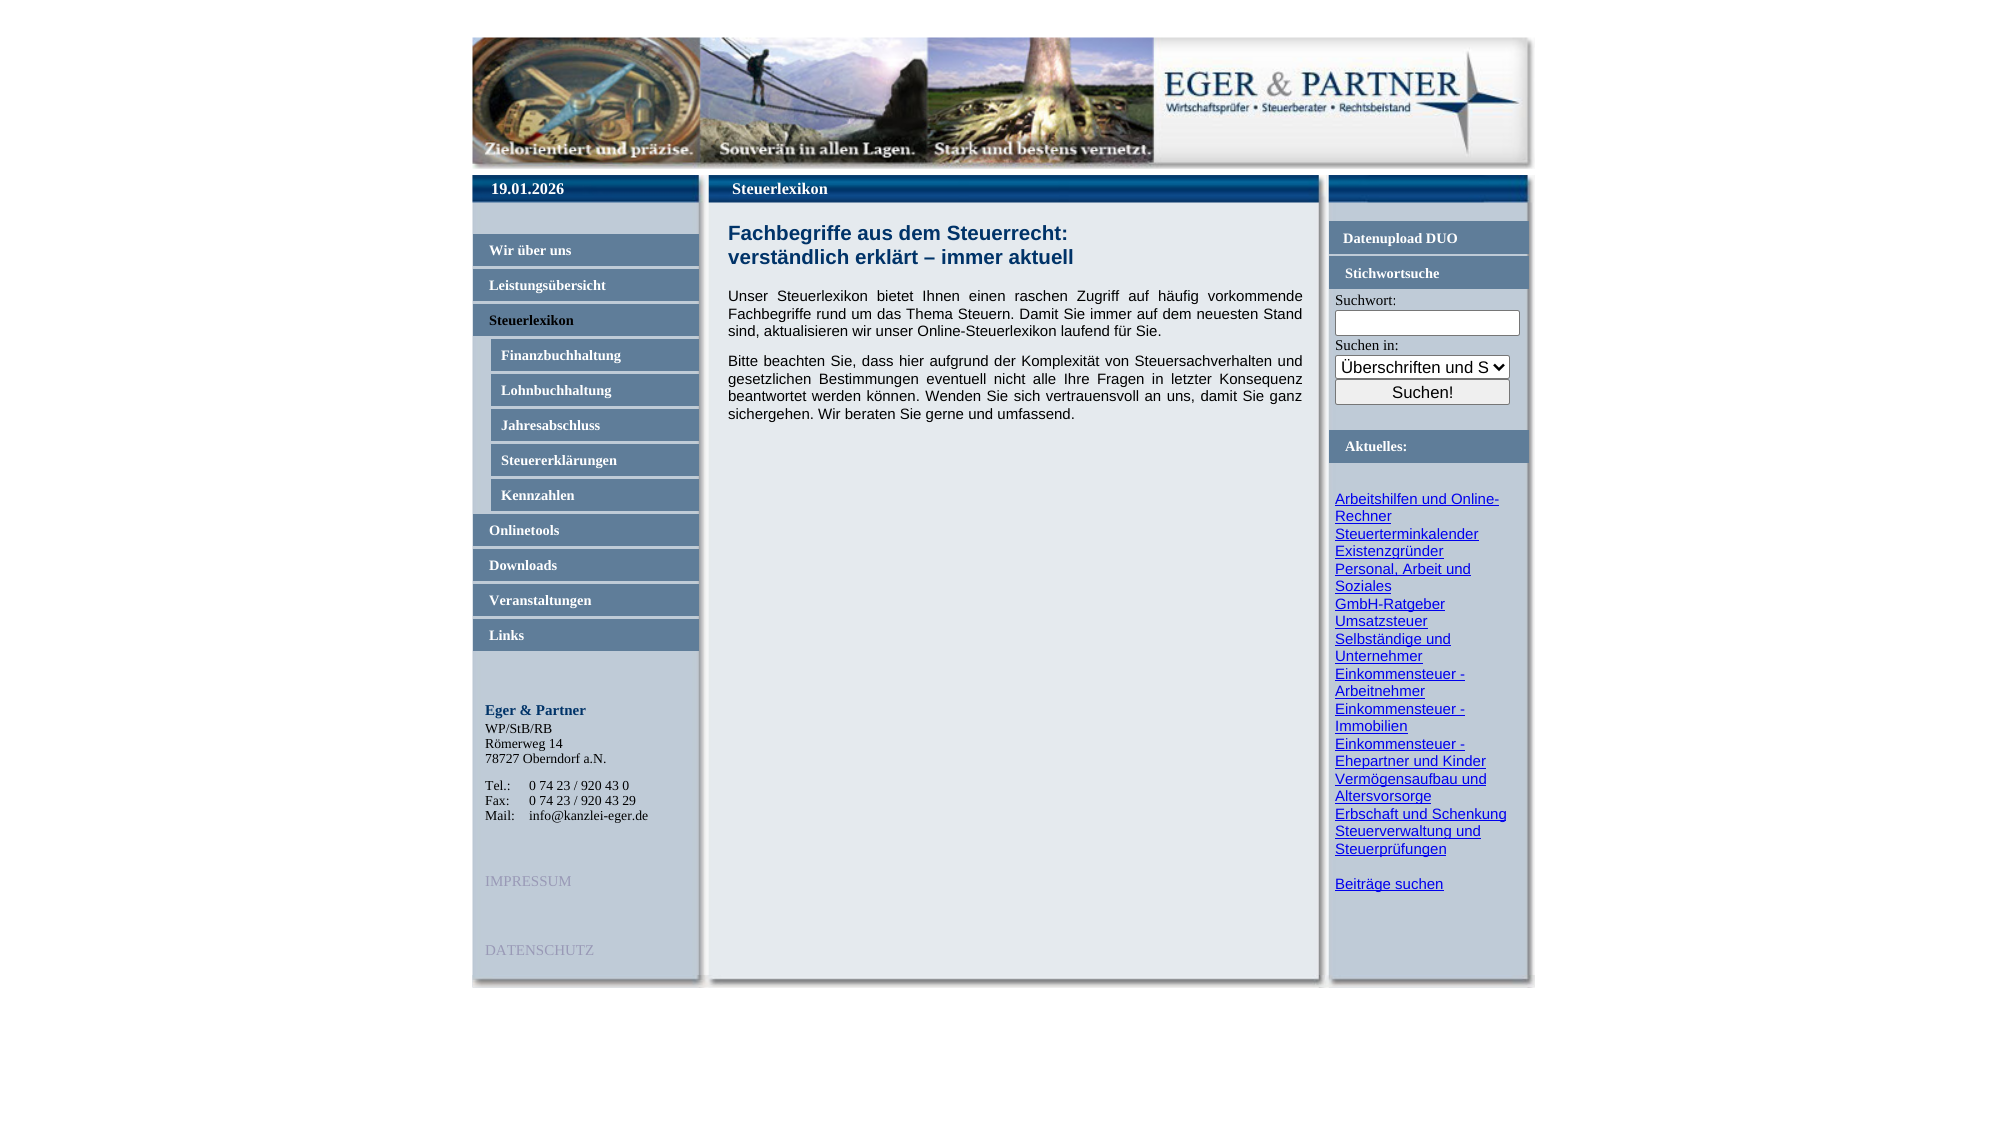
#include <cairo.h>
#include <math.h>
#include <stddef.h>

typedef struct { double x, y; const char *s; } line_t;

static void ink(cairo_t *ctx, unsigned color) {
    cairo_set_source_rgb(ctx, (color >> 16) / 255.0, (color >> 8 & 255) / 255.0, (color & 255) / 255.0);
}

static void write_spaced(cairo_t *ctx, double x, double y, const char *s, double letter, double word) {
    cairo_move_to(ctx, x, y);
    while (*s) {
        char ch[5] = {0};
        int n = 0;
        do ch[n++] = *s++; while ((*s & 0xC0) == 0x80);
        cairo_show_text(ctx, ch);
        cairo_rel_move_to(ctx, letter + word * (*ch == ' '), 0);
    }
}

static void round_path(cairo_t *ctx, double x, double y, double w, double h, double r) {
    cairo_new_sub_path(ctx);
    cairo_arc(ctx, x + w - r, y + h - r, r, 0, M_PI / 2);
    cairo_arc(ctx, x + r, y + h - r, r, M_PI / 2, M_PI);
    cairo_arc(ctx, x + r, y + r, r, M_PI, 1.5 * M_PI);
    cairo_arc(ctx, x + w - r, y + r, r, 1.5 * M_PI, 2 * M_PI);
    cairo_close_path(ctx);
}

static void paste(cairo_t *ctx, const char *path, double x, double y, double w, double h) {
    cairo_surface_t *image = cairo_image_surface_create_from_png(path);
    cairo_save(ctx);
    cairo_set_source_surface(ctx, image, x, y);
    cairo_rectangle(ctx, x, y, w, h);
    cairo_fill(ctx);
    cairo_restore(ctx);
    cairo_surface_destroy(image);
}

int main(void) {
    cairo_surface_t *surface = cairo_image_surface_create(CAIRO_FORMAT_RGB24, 2007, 1141);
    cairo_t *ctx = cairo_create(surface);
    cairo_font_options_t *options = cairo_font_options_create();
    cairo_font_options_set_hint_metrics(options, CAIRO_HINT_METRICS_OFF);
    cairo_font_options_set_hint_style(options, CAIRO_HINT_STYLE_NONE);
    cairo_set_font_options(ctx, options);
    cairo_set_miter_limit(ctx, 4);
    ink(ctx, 0xFFFFFF);
    cairo_paint(ctx);
    paste(ctx, "media/1.png", 472, 37, 1063, 132);
    paste(ctx, "media/2.png", 472, 175, 1063, 813);
    paste(ctx, "media/3.png", 472, 175, 234, 28);
    cairo_select_font_face(ctx, "Liberation Serif", CAIRO_FONT_SLANT_NORMAL, CAIRO_FONT_WEIGHT_BOLD);
    cairo_set_font_size(ctx, 16.25);
    ink(ctx, 0xFFFFFF);
    cairo_move_to(ctx, 491, 194);
    cairo_show_text(ctx, "19.01.2026");
    ink(ctx, 0x5F7D99);
    cairo_rectangle(ctx, 473, 234, 226, 32);
    cairo_fill(ctx);
    cairo_set_font_size(ctx, 14.4);
    ink(ctx, 0xFFFFFF);
    cairo_move_to(ctx, 489, 255);
    cairo_show_text(ctx, "Wir über uns");
    ink(ctx, 0x5F7D99);
    cairo_rectangle(ctx, 473, 269, 226, 32);
    cairo_fill(ctx);
    ink(ctx, 0xFFFFFF);
    cairo_move_to(ctx, 489, 290);
    cairo_show_text(ctx, "Leistungsübersicht");
    ink(ctx, 0x5F7D99);
    cairo_rectangle(ctx, 473, 304, 226, 32);
    cairo_fill(ctx);
    ink(ctx, 0x000000);
    cairo_move_to(ctx, 489, 325);
    cairo_show_text(ctx, "Steuerlexikon");
    ink(ctx, 0x5F7D99);
    cairo_rectangle(ctx, 491, 339, 208, 32);
    cairo_fill(ctx);
    ink(ctx, 0xFFFFFF);
    cairo_move_to(ctx, 501, 360);
    cairo_show_text(ctx, "Finanzbuchhaltung");
    ink(ctx, 0x5F7D99);
    cairo_rectangle(ctx, 491, 374, 208, 32);
    cairo_fill(ctx);
    ink(ctx, 0xFFFFFF);
    cairo_move_to(ctx, 501, 395);
    cairo_show_text(ctx, "Lohnbuchhaltung");
    ink(ctx, 0x5F7D99);
    cairo_rectangle(ctx, 491, 409, 208, 32);
    cairo_fill(ctx);
    ink(ctx, 0xFFFFFF);
    cairo_move_to(ctx, 501, 430);
    cairo_show_text(ctx, "Jahresabschluss");
    ink(ctx, 0x5F7D99);
    cairo_rectangle(ctx, 491, 444, 208, 32);
    cairo_fill(ctx);
    ink(ctx, 0xFFFFFF);
    cairo_move_to(ctx, 501, 465);
    cairo_show_text(ctx, "Steuererklärungen");
    ink(ctx, 0x5F7D99);
    cairo_rectangle(ctx, 491, 479, 208, 32);
    cairo_fill(ctx);
    ink(ctx, 0xFFFFFF);
    cairo_move_to(ctx, 501, 500);
    cairo_show_text(ctx, "Kennzahlen");
    ink(ctx, 0x5F7D99);
    cairo_rectangle(ctx, 473, 514, 226, 32);
    cairo_fill(ctx);
    ink(ctx, 0xFFFFFF);
    cairo_move_to(ctx, 489, 535);
    cairo_show_text(ctx, "Onlinetools");
    ink(ctx, 0x5F7D99);
    cairo_rectangle(ctx, 473, 549, 226, 32);
    cairo_fill(ctx);
    ink(ctx, 0xFFFFFF);
    cairo_move_to(ctx, 489, 570);
    cairo_show_text(ctx, "Downloads");
    ink(ctx, 0x5F7D99);
    cairo_rectangle(ctx, 473, 584, 226, 32);
    cairo_fill(ctx);
    ink(ctx, 0xFFFFFF);
    cairo_move_to(ctx, 489, 605);
    cairo_show_text(ctx, "Veranstaltungen");
    ink(ctx, 0x5F7D99);
    cairo_rectangle(ctx, 473, 619, 226, 32);
    cairo_fill(ctx);
    ink(ctx, 0xFFFFFF);
    cairo_move_to(ctx, 489, 640);
    cairo_show_text(ctx, "Links");
    cairo_set_font_size(ctx, 15);
    ink(ctx, 0x003368);
    cairo_move_to(ctx, 485, 715);
    cairo_show_text(ctx, "Eger & Partner");
    cairo_select_font_face(ctx, "Liberation Serif", CAIRO_FONT_SLANT_NORMAL, CAIRO_FONT_WEIGHT_NORMAL);
    cairo_set_font_size(ctx, 13.75);
    ink(ctx, 0x000000);
    {
        static const line_t items[] = {
            {485, 733, "WP/StB/RB"},
            {485, 748, "Römerweg 14"},
            {485, 763, "78727 Oberndorf a.N."},
            {485, 790, "Tel.:"},
            {529, 790, "0 74 23 / 920 43 0"},
            {485, 805, "Fax:"},
            {529, 805, "0 74 23 / 920 43 29"},
            {485, 820, "Mail:"},
            {529, 820, "info@kanzlei-eger.de"},
        };
        for (size_t i = 0; i < sizeof items / sizeof *items; i++) {
            cairo_move_to(ctx, items[i].x, items[i].y);
            cairo_show_text(ctx, items[i].s);
        }
    }
    cairo_set_font_size(ctx, 15);
    ink(ctx, 0x9999B6);
    cairo_move_to(ctx, 485, 886);
    cairo_show_text(ctx, "IMPRESSUM");
    cairo_move_to(ctx, 485, 955);
    cairo_show_text(ctx, "DATENSCHUTZ");
    paste(ctx, "media/4.png", 708, 175, 618, 28);
    cairo_select_font_face(ctx, "Liberation Serif", CAIRO_FONT_SLANT_NORMAL, CAIRO_FONT_WEIGHT_BOLD);
    cairo_set_font_size(ctx, 16.25);
    ink(ctx, 0xFFFFFF);
    cairo_move_to(ctx, 732, 194);
    cairo_show_text(ctx, "Steuerlexikon");
    cairo_select_font_face(ctx, "Liberation Sans", CAIRO_FONT_SLANT_NORMAL, CAIRO_FONT_WEIGHT_BOLD);
    cairo_set_font_size(ctx, 20.6);
    ink(ctx, 0x003368);
    cairo_move_to(ctx, 728, 240);
    cairo_show_text(ctx, "Fachbegriffe aus dem Steuerrecht:");
    cairo_move_to(ctx, 728, 264);
    cairo_show_text(ctx, "verständlich erklärt – immer aktuell");
    cairo_select_font_face(ctx, "Liberation Sans", CAIRO_FONT_SLANT_NORMAL, CAIRO_FONT_WEIGHT_NORMAL);
    cairo_set_font_size(ctx, 15);
    ink(ctx, 0x000000);
    write_spaced(ctx, 728, 301, "Unser Steuerlexikon bietet Ihnen einen raschen Zugriff auf häufig vorkommende", 0, 4.75);
    write_spaced(ctx, 728, 319, "Fachbegriffe rund um das Thema Steuern. Damit Sie immer auf dem neuesten Stand", 0, 0.75);
    cairo_move_to(ctx, 728, 336);
    cairo_show_text(ctx, "sind, aktualisieren wir unser Online-Steuerlexikon laufend für Sie.");
    write_spaced(ctx, 728, 366, "Bitte beachten Sie, dass hier aufgrund der Komplexität von Steuersachverhalten und", 0, 1.25);
    write_spaced(ctx, 728, 384, "gesetzlichen Bestimmungen eventuell nicht alle Ihre Fragen in letzter Konsequenz", 0, 3.25);
    write_spaced(ctx, 728, 401, "beantwortet werden können. Wenden Sie sich vertrauensvoll an uns, damit Sie ganz", 0, 1.25);
    cairo_move_to(ctx, 728, 419);
    cairo_show_text(ctx, "sichergehen. Wir beraten Sie gerne und umfassend.");
    paste(ctx, "media/5.png", 1328, 175, 206, 28);
    ink(ctx, 0x5F7D99);
    cairo_rectangle(ctx, 1329, 221, 200, 33);
    cairo_fill(ctx);
    cairo_select_font_face(ctx, "Liberation Serif", CAIRO_FONT_SLANT_NORMAL, CAIRO_FONT_WEIGHT_BOLD);
    cairo_set_font_size(ctx, 14.4);
    ink(ctx, 0xFFFFFF);
    cairo_move_to(ctx, 1343, 243);
    cairo_show_text(ctx, "Datenupload DUO");
    ink(ctx, 0x5F7D99);
    cairo_rectangle(ctx, 1329, 256, 200, 33);
    cairo_fill(ctx);
    ink(ctx, 0xFFFFFF);
    cairo_move_to(ctx, 1345, 278);
    cairo_show_text(ctx, "Stichwortsuche");
    cairo_select_font_face(ctx, "Liberation Serif", CAIRO_FONT_SLANT_NORMAL, CAIRO_FONT_WEIGHT_NORMAL);
    cairo_set_font_size(ctx, 15);
    ink(ctx, 0x000000);
    cairo_move_to(ctx, 1335, 305);
    cairo_show_text(ctx, "Suchwort:");
    ink(ctx, 0xFFFFFF);
    round_path(ctx, 1335.5, 310.5, 184, 25, 2);
    cairo_fill_preserve(ctx);
    ink(ctx, 0x767676);
    cairo_set_line_width(ctx, 1);
    cairo_stroke(ctx);
    ink(ctx, 0x000000);
    cairo_move_to(ctx, 1335, 350);
    cairo_show_text(ctx, "Suchen in:");
    ink(ctx, 0xFFFFFF);
    round_path(ctx, 1335.5, 355.5, 174, 23, 2);
    cairo_fill_preserve(ctx);
    ink(ctx, 0x767676);
    cairo_stroke(ctx);
    cairo_new_path(ctx);
    cairo_move_to(ctx, 1494, 364.5);
    cairo_line_to(ctx, 1499, 369.5);
    cairo_line_to(ctx, 1504, 364.5);
    ink(ctx, 0x000000);
    cairo_set_line_width(ctx, 2.5);
    cairo_stroke(ctx);
    cairo_select_font_face(ctx, "Liberation Sans", CAIRO_FONT_SLANT_NORMAL, CAIRO_FONT_WEIGHT_NORMAL);
    cairo_set_font_size(ctx, 16.75);
    cairo_move_to(ctx, 1341, 373);
    cairo_show_text(ctx, "Überschriften und S");
    ink(ctx, 0xEFEFEF);
    round_path(ctx, 1335.5, 379.5, 174, 25, 2);
    cairo_fill_preserve(ctx);
    ink(ctx, 0x767676);
    cairo_set_line_width(ctx, 1);
    cairo_stroke(ctx);
    ink(ctx, 0x000000);
    cairo_move_to(ctx, 1392, 398);
    cairo_show_text(ctx, "Suchen!");
    ink(ctx, 0x5F7D99);
    cairo_rectangle(ctx, 1329, 430, 200, 33);
    cairo_fill(ctx);
    cairo_select_font_face(ctx, "Liberation Serif", CAIRO_FONT_SLANT_NORMAL, CAIRO_FONT_WEIGHT_BOLD);
    cairo_set_font_size(ctx, 14.4);
    ink(ctx, 0xFFFFFF);
    cairo_move_to(ctx, 1345, 451);
    cairo_show_text(ctx, "Aktuelles:");
    cairo_select_font_face(ctx, "Liberation Sans", CAIRO_FONT_SLANT_NORMAL, CAIRO_FONT_WEIGHT_NORMAL);
    cairo_set_font_size(ctx, 15);
    ink(ctx, 0x0000EE);
    cairo_move_to(ctx, 1335, 504);
    cairo_show_text(ctx, "Arbeitshilfen und Online-");
    cairo_rectangle(ctx, 1335, 505, 164, 1);
    cairo_fill(ctx);
    cairo_move_to(ctx, 1335, 521);
    cairo_show_text(ctx, "Rechner");
    cairo_rectangle(ctx, 1335, 523, 56, 1);
    cairo_fill(ctx);
    cairo_move_to(ctx, 1335, 539);
    cairo_show_text(ctx, "Steuerterminkalender");
    cairo_rectangle(ctx, 1335, 540, 144, 1);
    cairo_fill(ctx);
    cairo_rectangle(ctx, 1335, 558, 109, 1);
    cairo_fill(ctx);
    cairo_move_to(ctx, 1335, 556);
    cairo_show_text(ctx, "Existenzgründer");
    cairo_rectangle(ctx, 1335, 575, 136, 1);
    cairo_fill(ctx);
    cairo_move_to(ctx, 1335, 574);
    cairo_show_text(ctx, "Personal, Arbeit und");
    cairo_move_to(ctx, 1335, 591);
    cairo_show_text(ctx, "Soziales");
    cairo_rectangle(ctx, 1335, 593, 56, 1);
    cairo_fill(ctx);
    cairo_rectangle(ctx, 1335, 610, 110, 1);
    cairo_fill(ctx);
    cairo_move_to(ctx, 1335, 609);
    cairo_show_text(ctx, "GmbH-Ratgeber");
    cairo_move_to(ctx, 1335, 626);
    cairo_show_text(ctx, "Umsatzsteuer");
    cairo_rectangle(ctx, 1335, 628, 93, 1);
    cairo_fill(ctx);
    cairo_rectangle(ctx, 1335, 645, 116, 1);
    cairo_fill(ctx);
    cairo_move_to(ctx, 1335, 644);
    cairo_show_text(ctx, "Selbständige und");
    cairo_move_to(ctx, 1335, 661);
    cairo_show_text(ctx, "Unternehmer");
    cairo_rectangle(ctx, 1335, 663, 88, 1);
    cairo_fill(ctx);
    cairo_move_to(ctx, 1335, 679);
    cairo_show_text(ctx, "Einkommensteuer -");
    cairo_rectangle(ctx, 1335, 680, 130, 1);
    cairo_fill(ctx);
    cairo_move_to(ctx, 1335, 696);
    cairo_show_text(ctx, "Arbeitnehmer");
    cairo_rectangle(ctx, 1335, 698, 90, 1);
    cairo_fill(ctx);
    cairo_move_to(ctx, 1335, 714);
    cairo_show_text(ctx, "Einkommensteuer -");
    cairo_rectangle(ctx, 1335, 715, 130, 1);
    cairo_fill(ctx);
    cairo_move_to(ctx, 1335, 731);
    cairo_show_text(ctx, "Immobilien");
    cairo_rectangle(ctx, 1335, 733, 73, 1);
    cairo_fill(ctx);
    cairo_move_to(ctx, 1335, 749);
    cairo_show_text(ctx, "Einkommensteuer -");
    cairo_rectangle(ctx, 1335, 750, 130, 1);
    cairo_fill(ctx);
    cairo_rectangle(ctx, 1335, 768, 151, 1);
    cairo_fill(ctx);
    cairo_move_to(ctx, 1335, 766);
    cairo_show_text(ctx, "Ehepartner und Kinder");
    cairo_rectangle(ctx, 1335, 785, 151, 1);
    cairo_fill(ctx);
    cairo_move_to(ctx, 1335, 784);
    cairo_show_text(ctx, "Vermögensaufbau und");
    cairo_rectangle(ctx, 1335, 803, 96, 1);
    cairo_fill(ctx);
    cairo_move_to(ctx, 1335, 801);
    cairo_show_text(ctx, "Altersvorsorge");
    cairo_rectangle(ctx, 1335, 820, 171, 1);
    cairo_fill(ctx);
    cairo_move_to(ctx, 1335, 819);
    cairo_show_text(ctx, "Erbschaft und Schenkung");
    cairo_rectangle(ctx, 1335, 838, 146, 1);
    cairo_fill(ctx);
    cairo_move_to(ctx, 1335, 836);
    cairo_show_text(ctx, "Steuerverwaltung und");
    cairo_rectangle(ctx, 1335, 855, 111, 1);
    cairo_fill(ctx);
    cairo_move_to(ctx, 1335, 854);
    cairo_show_text(ctx, "Steuerprüfungen");
    cairo_rectangle(ctx, 1335, 890, 109, 1);
    cairo_fill(ctx);
    cairo_move_to(ctx, 1335, 889);
    cairo_show_text(ctx, "Beiträge suchen");
    paste(ctx, "media/6.png", 472, 975, 1063, 13);
    cairo_surface_write_to_png(surface, "image.png");
    cairo_font_options_destroy(options);
    cairo_destroy(ctx);
    cairo_surface_destroy(surface);
    return 0;
}
